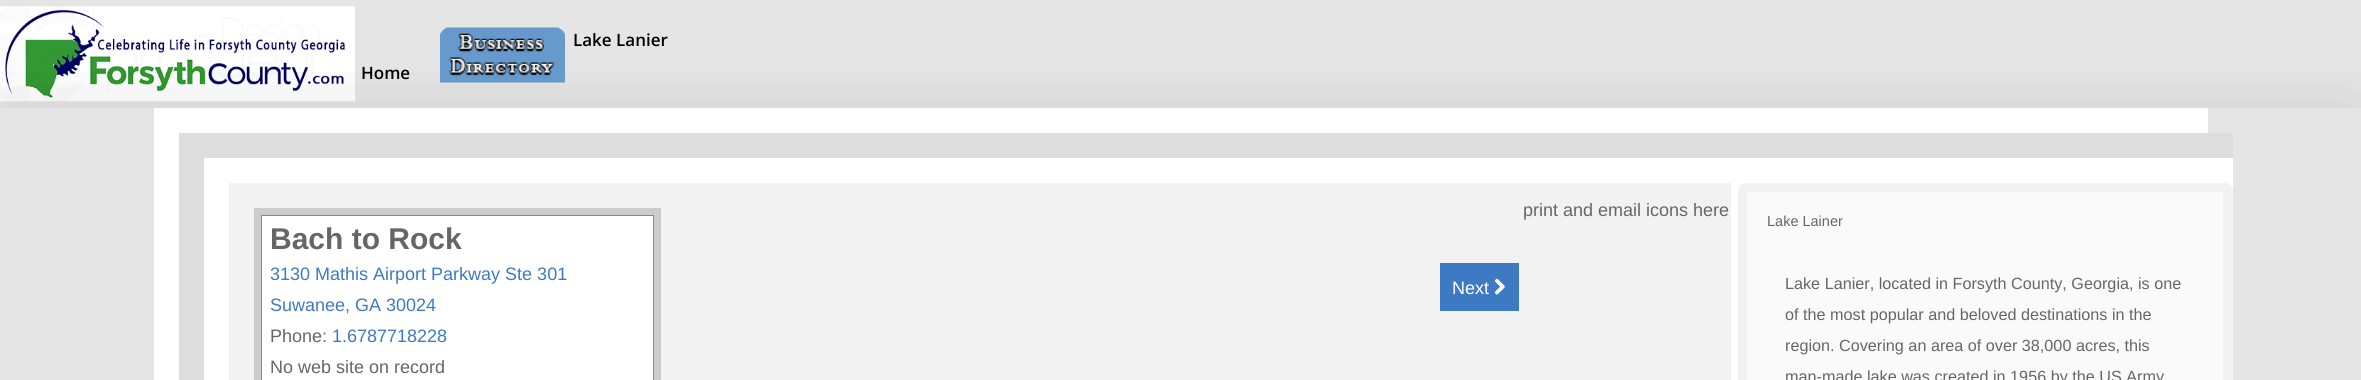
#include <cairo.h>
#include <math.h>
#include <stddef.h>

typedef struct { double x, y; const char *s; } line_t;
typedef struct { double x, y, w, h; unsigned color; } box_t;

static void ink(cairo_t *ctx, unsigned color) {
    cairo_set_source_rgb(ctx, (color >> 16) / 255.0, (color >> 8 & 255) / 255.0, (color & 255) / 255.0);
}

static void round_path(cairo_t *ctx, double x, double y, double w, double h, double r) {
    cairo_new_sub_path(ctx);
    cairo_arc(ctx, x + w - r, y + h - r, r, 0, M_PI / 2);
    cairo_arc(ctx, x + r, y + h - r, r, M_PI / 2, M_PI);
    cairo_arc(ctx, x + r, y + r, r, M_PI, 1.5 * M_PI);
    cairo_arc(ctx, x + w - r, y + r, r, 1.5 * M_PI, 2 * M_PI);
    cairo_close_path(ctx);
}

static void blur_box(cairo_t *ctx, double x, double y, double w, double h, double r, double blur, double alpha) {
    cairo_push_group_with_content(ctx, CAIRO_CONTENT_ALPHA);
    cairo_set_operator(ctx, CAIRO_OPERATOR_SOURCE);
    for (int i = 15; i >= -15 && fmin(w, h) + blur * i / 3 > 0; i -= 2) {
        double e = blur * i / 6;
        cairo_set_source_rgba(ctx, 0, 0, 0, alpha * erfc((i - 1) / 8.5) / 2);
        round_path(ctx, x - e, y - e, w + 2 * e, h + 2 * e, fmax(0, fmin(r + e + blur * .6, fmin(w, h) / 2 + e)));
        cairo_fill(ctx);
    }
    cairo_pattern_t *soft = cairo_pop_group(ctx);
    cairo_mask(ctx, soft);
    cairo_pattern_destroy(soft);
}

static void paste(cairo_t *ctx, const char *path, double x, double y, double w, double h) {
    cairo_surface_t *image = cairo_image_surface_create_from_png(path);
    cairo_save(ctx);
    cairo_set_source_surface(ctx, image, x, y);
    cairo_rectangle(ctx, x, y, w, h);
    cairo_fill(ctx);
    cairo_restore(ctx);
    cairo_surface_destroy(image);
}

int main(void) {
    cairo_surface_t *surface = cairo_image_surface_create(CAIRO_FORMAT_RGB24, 2361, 380);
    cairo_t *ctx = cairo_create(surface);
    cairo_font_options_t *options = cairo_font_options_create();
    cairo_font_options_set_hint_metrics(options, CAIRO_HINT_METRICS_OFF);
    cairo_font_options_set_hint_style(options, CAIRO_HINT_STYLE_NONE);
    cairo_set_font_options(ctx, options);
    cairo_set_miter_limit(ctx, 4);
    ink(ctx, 0xE5E5E5);
    cairo_paint(ctx);
    paste(ctx, "media/1.png", 0, 6, 355, 96);
    cairo_save(ctx);
    cairo_rectangle(ctx, 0, 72, 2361, 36);
    cairo_clip(ctx);
    ink(ctx, 0x000000);
    blur_box(ctx, 0, 108, 2361, 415, 0, 47.5, 0.09);
    cairo_restore(ctx);
    paste(ctx, "media/2.png", 440, 27, 125, 56);
    cairo_select_font_face(ctx, "Open Sans SemiBold", CAIRO_FONT_SLANT_NORMAL, CAIRO_FONT_WEIGHT_NORMAL);
    cairo_set_font_size(ctx, 17);
    ink(ctx, 0x000000);
    cairo_move_to(ctx, 573, 46);
    cairo_show_text(ctx, "Lake Lanier");
    cairo_move_to(ctx, 361, 79);
    cairo_show_text(ctx, "Home");
    {
        static const box_t items[] = {
            {154, 108, 2054, 272, 0xFFFFFF},
            {179, 133, 2054, 247, 0xDDDDDD},
            {204, 158, 2029, 222, 0xFFFFFF},
            {229, 183, 1502, 197, 0xF2F2F2},
        };
        for (size_t i = 0; i < sizeof items / sizeof *items; i++) {
            ink(ctx, items[i].color);
            cairo_rectangle(ctx, items[i].x, items[i].y, items[i].w, items[i].h);
            cairo_fill(ctx);
        }
    }
    cairo_select_font_face(ctx, "Liberation Sans", CAIRO_FONT_SLANT_NORMAL, CAIRO_FONT_WEIGHT_NORMAL);
    cairo_set_font_size(ctx, 18);
    ink(ctx, 0x666666);
    cairo_move_to(ctx, 1523, 216);
    cairo_show_text(ctx, "print and email icons here");
    ink(ctx, 0xCCCCCC);
    cairo_rectangle(ctx, 254, 208, 407, 172);
    cairo_fill(ctx);
    ink(ctx, 0xFFFFFF);
    cairo_rectangle(ctx, 261.5, 215.5, 392, 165);
    cairo_fill_preserve(ctx);
    ink(ctx, 0x888888);
    cairo_set_line_width(ctx, 1);
    cairo_stroke(ctx);
    cairo_select_font_face(ctx, "Liberation Sans", CAIRO_FONT_SLANT_NORMAL, CAIRO_FONT_WEIGHT_BOLD);
    cairo_set_font_size(ctx, 30);
    ink(ctx, 0x666666);
    cairo_move_to(ctx, 270, 249);
    cairo_show_text(ctx, "Bach to Rock");
    cairo_select_font_face(ctx, "Liberation Sans", CAIRO_FONT_SLANT_NORMAL, CAIRO_FONT_WEIGHT_NORMAL);
    cairo_set_font_size(ctx, 18);
    ink(ctx, 0x3E7AC3);
    cairo_move_to(ctx, 270, 280);
    cairo_show_text(ctx, "3130 Mathis Airport Parkway Ste 301");
    cairo_move_to(ctx, 270, 311);
    cairo_show_text(ctx, "Suwanee, GA 30024");
    ink(ctx, 0x666666);
    cairo_move_to(ctx, 270, 342);
    cairo_show_text(ctx, "Phone:");
    ink(ctx, 0x3E7AC3);
    cairo_move_to(ctx, 332, 342);
    cairo_show_text(ctx, "1.6787718228");
    ink(ctx, 0x666666);
    cairo_move_to(ctx, 270, 373);
    cairo_show_text(ctx, "No web site on record");
    ink(ctx, 0x3E7AC3);
    cairo_rectangle(ctx, 1440, 263, 79, 48);
    cairo_fill(ctx);
    ink(ctx, 0xFFFFFF);
    cairo_move_to(ctx, 1452, 294);
    cairo_show_text(ctx, "Next");
    paste(ctx, "media/3.png", 1494, 278, 11, 17);
    ink(ctx, 0xF2F2F2);
    round_path(ctx, 1738, 183, 495, 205, 8);
    cairo_fill(ctx);
    ink(ctx, 0xFAFAFA);
    cairo_rectangle(ctx, 1747, 192, 476, 188);
    cairo_fill(ctx);
    cairo_set_font_size(ctx, 14.5);
    ink(ctx, 0x666666);
    cairo_move_to(ctx, 1767, 226);
    cairo_show_text(ctx, "Lake Lainer");
    cairo_set_font_size(ctx, 16.2);
    {
        static const line_t items[] = {
            {1785, 289, "Lake Lanier, located in Forsyth County, Georgia, is one"},
            {1785, 320, "of the most popular and beloved destinations in the"},
            {1785, 351, "region. Covering an area of over 38,000 acres, this"},
            {1785, 382, "man-made lake was created in 1956 by the US Army"},
        };
        for (size_t i = 0; i < sizeof items / sizeof *items; i++) {
            cairo_move_to(ctx, items[i].x, items[i].y);
            cairo_show_text(ctx, items[i].s);
        }
    }
    cairo_surface_write_to_png(surface, "image.png");
    cairo_font_options_destroy(options);
    cairo_destroy(ctx);
    cairo_surface_destroy(surface);
    return 0;
}
